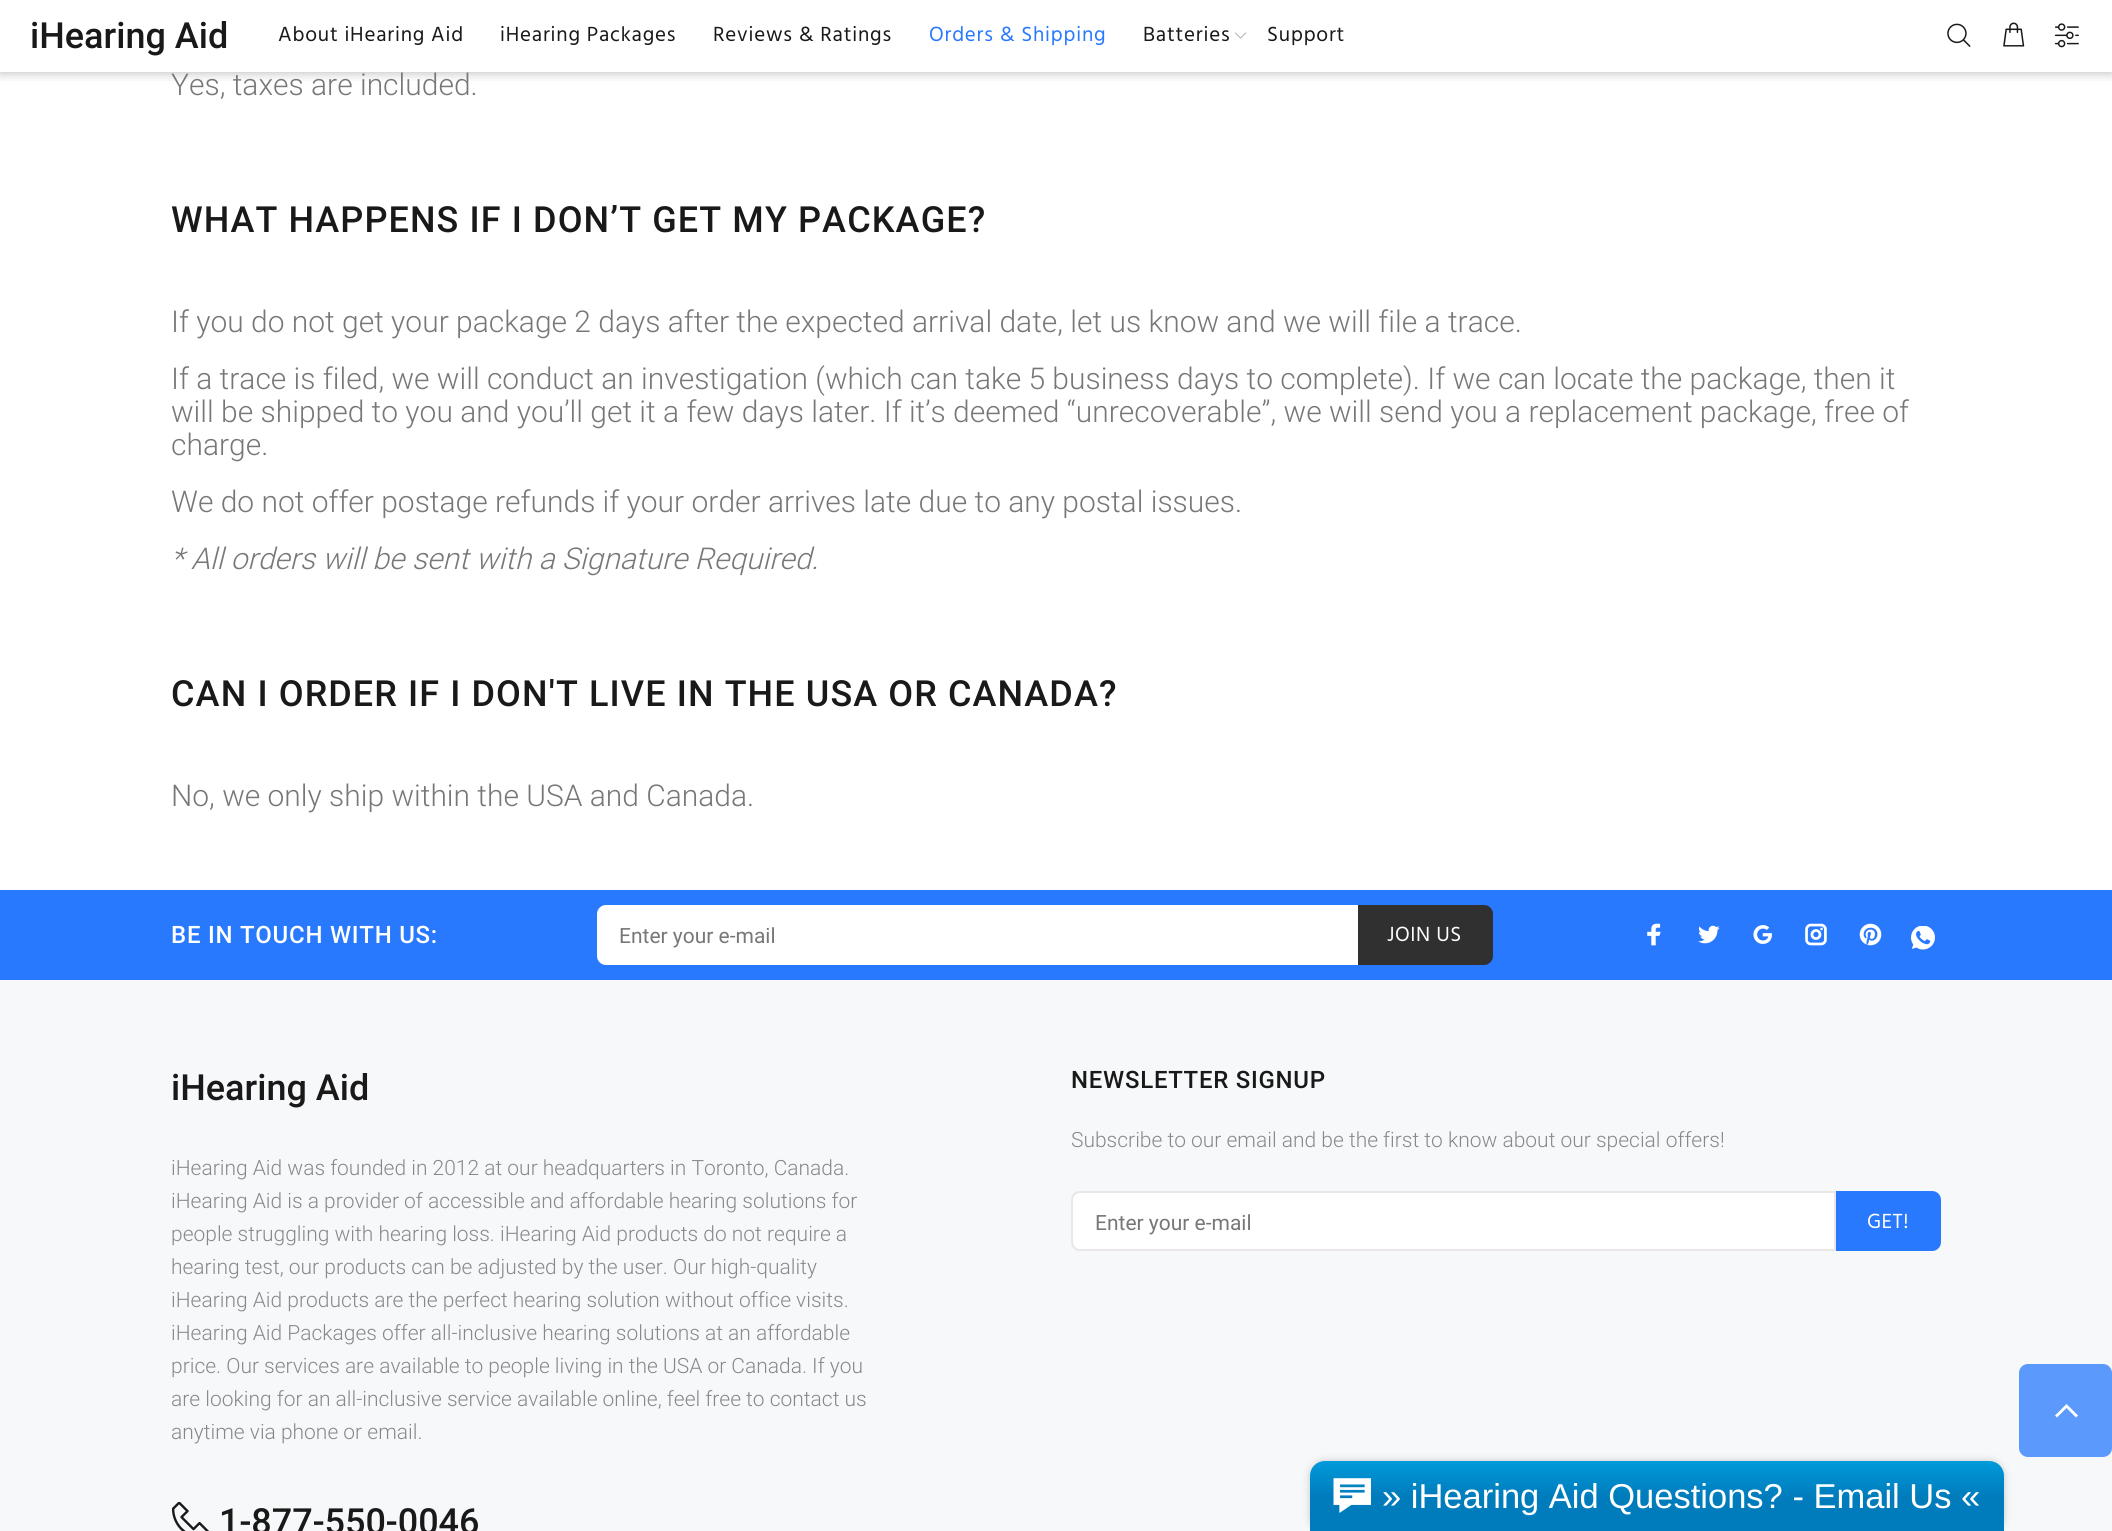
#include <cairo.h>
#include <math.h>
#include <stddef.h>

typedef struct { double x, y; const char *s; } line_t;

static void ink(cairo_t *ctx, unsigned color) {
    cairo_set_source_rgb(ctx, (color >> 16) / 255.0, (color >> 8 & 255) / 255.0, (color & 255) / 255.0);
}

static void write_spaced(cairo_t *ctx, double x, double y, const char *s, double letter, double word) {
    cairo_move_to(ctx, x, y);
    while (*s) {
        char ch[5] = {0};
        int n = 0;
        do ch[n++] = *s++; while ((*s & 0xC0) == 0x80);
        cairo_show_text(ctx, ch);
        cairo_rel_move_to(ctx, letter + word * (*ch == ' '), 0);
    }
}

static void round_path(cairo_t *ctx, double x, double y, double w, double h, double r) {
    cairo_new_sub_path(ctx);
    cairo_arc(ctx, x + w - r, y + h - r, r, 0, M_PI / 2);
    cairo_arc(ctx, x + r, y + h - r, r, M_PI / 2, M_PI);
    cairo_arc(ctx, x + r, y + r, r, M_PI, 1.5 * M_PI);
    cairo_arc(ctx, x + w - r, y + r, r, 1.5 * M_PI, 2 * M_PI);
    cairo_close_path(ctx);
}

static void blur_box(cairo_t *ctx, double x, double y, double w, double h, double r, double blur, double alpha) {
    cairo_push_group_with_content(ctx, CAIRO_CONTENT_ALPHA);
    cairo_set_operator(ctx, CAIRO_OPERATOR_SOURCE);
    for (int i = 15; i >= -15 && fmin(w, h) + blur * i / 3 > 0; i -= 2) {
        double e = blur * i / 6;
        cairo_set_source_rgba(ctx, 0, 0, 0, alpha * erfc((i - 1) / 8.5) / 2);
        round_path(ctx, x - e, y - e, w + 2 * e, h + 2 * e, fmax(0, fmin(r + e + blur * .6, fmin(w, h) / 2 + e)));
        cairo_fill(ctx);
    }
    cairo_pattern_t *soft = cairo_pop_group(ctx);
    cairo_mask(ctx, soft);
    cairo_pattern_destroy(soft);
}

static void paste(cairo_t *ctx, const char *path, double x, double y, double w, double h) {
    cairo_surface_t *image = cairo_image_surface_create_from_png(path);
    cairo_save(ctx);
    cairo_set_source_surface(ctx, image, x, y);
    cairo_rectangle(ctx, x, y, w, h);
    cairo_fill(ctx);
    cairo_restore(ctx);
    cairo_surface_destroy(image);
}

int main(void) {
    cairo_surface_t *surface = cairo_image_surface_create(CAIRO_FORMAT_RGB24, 2112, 1531);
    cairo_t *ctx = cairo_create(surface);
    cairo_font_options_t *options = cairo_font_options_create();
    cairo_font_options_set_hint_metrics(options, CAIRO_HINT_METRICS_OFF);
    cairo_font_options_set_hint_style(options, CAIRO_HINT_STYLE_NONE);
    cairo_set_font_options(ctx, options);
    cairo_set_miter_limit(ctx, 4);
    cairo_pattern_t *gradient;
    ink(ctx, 0xFFFFFF);
    cairo_paint(ctx);
    cairo_save(ctx);
    cairo_rectangle(ctx, 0, 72, 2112, 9);
    cairo_clip(ctx);
    ink(ctx, 0x000000);
    blur_box(ctx, 0, 0, 2112, 72, 0, 6, 0.3);
    cairo_restore(ctx);
    cairo_select_font_face(ctx, "Roboto Medium", CAIRO_FONT_SLANT_NORMAL, CAIRO_FONT_WEIGHT_NORMAL);
    cairo_set_font_size(ctx, 36);
    ink(ctx, 0x191919);
    cairo_move_to(ctx, 30, 48);
    cairo_show_text(ctx, "iHearing Aid");
    cairo_select_font_face(ctx, "Hind", CAIRO_FONT_SLANT_NORMAL, CAIRO_FONT_WEIGHT_NORMAL);
    cairo_set_font_size(ctx, 21);
    {
        static const line_t items[] = {
            {278, 41, "About iHearing Aid"},
            {500, 41, "iHearing Packages"},
            {713, 41, "Reviews & Ratings"},
        };
        for (size_t i = 0; i < sizeof items / sizeof *items; i++) {
            write_spaced(ctx, items[i].x, items[i].y, items[i].s, 0.8, 0);
        }
    }
    ink(ctx, 0x2879FE);
    write_spaced(ctx, 929, 41, "Orders & Shipping", 0.8, 0);
    ink(ctx, 0x191919);
    write_spaced(ctx, 1143, 41, "Batteries", 0.8, 0);
    paste(ctx, "media/1.png", 1234, 32, 13, 7);
    write_spaced(ctx, 1267, 41, "Support", 0.8, 0);
    paste(ctx, "media/2.png", 1947, 23, 24, 24);
    paste(ctx, "media/3.png", 2003, 22, 22, 25);
    paste(ctx, "media/4.png", 2054, 23, 25, 25);
    cairo_select_font_face(ctx, "Roboto Light", CAIRO_FONT_SLANT_NORMAL, CAIRO_FONT_WEIGHT_NORMAL);
    cairo_set_font_size(ctx, 30);
    ink(ctx, 0x777777);
    cairo_move_to(ctx, 171, 95);
    cairo_show_text(ctx, "Yes, taxes are included.");
    cairo_select_font_face(ctx, "Roboto Medium", CAIRO_FONT_SLANT_NORMAL, CAIRO_FONT_WEIGHT_NORMAL);
    cairo_set_font_size(ctx, 36);
    ink(ctx, 0x191919);
    write_spaced(ctx, 171, 232, "WHAT HAPPENS IF I DON’T GET MY PACKAGE?", 1.1, 0);
    cairo_select_font_face(ctx, "Roboto Light", CAIRO_FONT_SLANT_NORMAL, CAIRO_FONT_WEIGHT_NORMAL);
    cairo_set_font_size(ctx, 30);
    ink(ctx, 0x777777);
    {
        static const line_t items[] = {
            {171, 332, "If you do not get your package 2 days after the expected arrival date, let us know and we will file a trace."},
            {171, 389, "If a trace is filed, we will conduct an investigation (which can take 5 business days to complete). If we can locate the package, then it"},
            {171, 422, "will be shipped to you and you’ll get it a few days later. If it’s deemed “unrecoverable”, we will send you a replacement package, free of"},
            {171, 455, "charge."},
            {171, 512, "We do not offer postage refunds if your order arrives late due to any postal issues."},
        };
        for (size_t i = 0; i < sizeof items / sizeof *items; i++) {
            cairo_move_to(ctx, items[i].x, items[i].y);
            cairo_show_text(ctx, items[i].s);
        }
    }
    cairo_select_font_face(ctx, "Roboto Light", CAIRO_FONT_SLANT_ITALIC, CAIRO_FONT_WEIGHT_NORMAL);
    cairo_move_to(ctx, 171, 569);
    cairo_show_text(ctx, "* All orders will be sent with a Signature Required.");
    cairo_select_font_face(ctx, "Roboto Medium", CAIRO_FONT_SLANT_NORMAL, CAIRO_FONT_WEIGHT_NORMAL);
    cairo_set_font_size(ctx, 36);
    ink(ctx, 0x191919);
    write_spaced(ctx, 171, 706, "CAN I ORDER IF I DON'T LIVE IN THE USA OR CANADA?", 1.1, 0);
    cairo_select_font_face(ctx, "Roboto Light", CAIRO_FONT_SLANT_NORMAL, CAIRO_FONT_WEIGHT_NORMAL);
    cairo_set_font_size(ctx, 30);
    ink(ctx, 0x777777);
    cairo_move_to(ctx, 171, 806);
    cairo_show_text(ctx, "No, we only ship within the USA and Canada.");
    ink(ctx, 0xF7F8FA);
    cairo_rectangle(ctx, 0, 980, 2112, 551);
    cairo_fill(ctx);
    ink(ctx, 0x2879FE);
    cairo_rectangle(ctx, 0, 890, 2112, 90);
    cairo_fill(ctx);
    cairo_select_font_face(ctx, "Roboto Medium", CAIRO_FONT_SLANT_NORMAL, CAIRO_FONT_WEIGHT_NORMAL);
    cairo_set_font_size(ctx, 24);
    ink(ctx, 0xFFFFFF);
    write_spaced(ctx, 171, 943, "BE IN TOUCH WITH US:", 0.75, 0);
    cairo_new_path(ctx);
    cairo_move_to(ctx, 606, 905);
    cairo_line_to(ctx, 1358, 905);
    cairo_line_to(ctx, 1358, 965);
    cairo_line_to(ctx, 606, 965);
    cairo_curve_to(ctx, 601, 965, 597, 961, 597, 956);
    cairo_line_to(ctx, 597, 914);
    cairo_curve_to(ctx, 597, 909, 601, 905, 606, 905);
    cairo_close_path(ctx);
    cairo_fill(ctx);
    cairo_select_font_face(ctx, "Roboto", CAIRO_FONT_SLANT_NORMAL, CAIRO_FONT_WEIGHT_NORMAL);
    cairo_set_font_size(ctx, 21);
    ink(ctx, 0x777777);
    cairo_move_to(ctx, 619, 943);
    cairo_show_text(ctx, "Enter your e-mail");
    ink(ctx, 0x303030);
    cairo_new_path(ctx);
    cairo_move_to(ctx, 1358, 905);
    cairo_line_to(ctx, 1484, 905);
    cairo_curve_to(ctx, 1489, 905, 1493, 909, 1493, 914);
    cairo_line_to(ctx, 1493, 956);
    cairo_curve_to(ctx, 1493, 961, 1489, 965, 1484, 965);
    cairo_line_to(ctx, 1358, 965);
    cairo_close_path(ctx);
    cairo_fill(ctx);
    cairo_select_font_face(ctx, "Hind", CAIRO_FONT_SLANT_NORMAL, CAIRO_FONT_WEIGHT_NORMAL);
    ink(ctx, 0xFFFFFF);
    write_spaced(ctx, 1387, 941, "JOIN US", 0.5, 0);
    paste(ctx, "media/5.png", 1647, 923, 14, 23);
    paste(ctx, "media/6.png", 1698, 925, 22, 19);
    paste(ctx, "media/7.png", 1753, 925, 19, 19);
    paste(ctx, "media/8.png", 1805, 923, 22, 23);
    paste(ctx, "media/9.png", 1859, 923, 23, 23);
    paste(ctx, "media/10.png", 1911, 926, 24, 24);
    cairo_select_font_face(ctx, "Roboto Medium", CAIRO_FONT_SLANT_NORMAL, CAIRO_FONT_WEIGHT_NORMAL);
    cairo_set_font_size(ctx, 36);
    ink(ctx, 0x191919);
    cairo_move_to(ctx, 171, 1100);
    cairo_show_text(ctx, "iHearing Aid");
    cairo_select_font_face(ctx, "Roboto Light", CAIRO_FONT_SLANT_NORMAL, CAIRO_FONT_WEIGHT_NORMAL);
    cairo_set_font_size(ctx, 21);
    ink(ctx, 0x888888);
    {
        static const line_t items[] = {
            {171, 1175, "iHearing Aid was founded in 2012 at our headquarters in Toronto, Canada."},
            {171, 1208, "iHearing Aid is a provider of accessible and affordable hearing solutions for"},
            {171, 1241, "people struggling with hearing loss. iHearing Aid products do not require a"},
            {171, 1274, "hearing test, our products can be adjusted by the user. Our high-quality"},
            {171, 1307, "iHearing Aid products are the perfect hearing solution without office visits."},
            {171, 1340, "iHearing Aid Packages offer all-inclusive hearing solutions at an affordable"},
            {171, 1373, "price. Our services are available to people living in the USA or Canada. If you"},
            {171, 1406, "are looking for an all-inclusive service available online, feel free to contact us"},
            {171, 1439, "anytime via phone or email."},
        };
        for (size_t i = 0; i < sizeof items / sizeof *items; i++) {
            cairo_move_to(ctx, items[i].x, items[i].y);
            cairo_show_text(ctx, items[i].s);
        }
    }
    paste(ctx, "media/11.png", 171, 1502, 38, 29);
    cairo_select_font_face(ctx, "Roboto Medium", CAIRO_FONT_SLANT_NORMAL, CAIRO_FONT_WEIGHT_NORMAL);
    cairo_set_font_size(ctx, 36);
    ink(ctx, 0x191919);
    cairo_move_to(ctx, 219, 1534);
    cairo_show_text(ctx, "1-877-550-0046");
    cairo_set_font_size(ctx, 24);
    write_spaced(ctx, 1071, 1088, "NEWSLETTER SIGNUP", 0.75, 0);
    cairo_select_font_face(ctx, "Roboto Light", CAIRO_FONT_SLANT_NORMAL, CAIRO_FONT_WEIGHT_NORMAL);
    cairo_set_font_size(ctx, 21);
    ink(ctx, 0x888888);
    cairo_move_to(ctx, 1071, 1147);
    cairo_show_text(ctx, "Subscribe to our email and be the first to know about our special offers!");
    ink(ctx, 0xFFFFFF);
    cairo_new_path(ctx);
    cairo_move_to(ctx, 1080, 1192);
    cairo_line_to(ctx, 1835, 1192);
    cairo_line_to(ctx, 1835, 1250);
    cairo_line_to(ctx, 1080, 1250);
    cairo_curve_to(ctx, 1075.5, 1250, 1072, 1246.5, 1072, 1242);
    cairo_line_to(ctx, 1072, 1200);
    cairo_curve_to(ctx, 1072, 1195.5, 1075.5, 1192, 1080, 1192);
    cairo_close_path(ctx);
    cairo_fill_preserve(ctx);
    ink(ctx, 0xE9E7E7);
    cairo_stroke(ctx);
    cairo_select_font_face(ctx, "Roboto", CAIRO_FONT_SLANT_NORMAL, CAIRO_FONT_WEIGHT_NORMAL);
    ink(ctx, 0x777777);
    cairo_move_to(ctx, 1095, 1230);
    cairo_show_text(ctx, "Enter your e-mail");
    ink(ctx, 0x2879FE);
    cairo_new_path(ctx);
    cairo_move_to(ctx, 1837, 1192);
    cairo_line_to(ctx, 1932, 1192);
    cairo_curve_to(ctx, 1936.5, 1192, 1940, 1195.5, 1940, 1200);
    cairo_line_to(ctx, 1940, 1242);
    cairo_curve_to(ctx, 1940, 1246.5, 1936.5, 1250, 1932, 1250);
    cairo_line_to(ctx, 1837, 1250);
    cairo_close_path(ctx);
    cairo_fill_preserve(ctx);
    cairo_stroke(ctx);
    cairo_select_font_face(ctx, "Hind", CAIRO_FONT_SLANT_NORMAL, CAIRO_FONT_WEIGHT_NORMAL);
    ink(ctx, 0xFFFFFF);
    write_spaced(ctx, 1867, 1228, "GET!", 0.5, 0);
    ink(ctx, 0x5C99FD);
    round_path(ctx, 2019, 1364, 93, 93, 9);
    cairo_fill(ctx);
    ink(ctx, 0xFFFFFF);
    cairo_new_path(ctx);
    cairo_move_to(ctx, 2076, 1417.5);
    cairo_line_to(ctx, 2066.5, 1408);
    cairo_line_to(ctx, 2057, 1417.5);
    cairo_line_to(ctx, 2055, 1415.5);
    cairo_line_to(ctx, 2066.5, 1404);
    cairo_line_to(ctx, 2078, 1415.5);
    cairo_close_path(ctx);
    cairo_fill(ctx);
    ink(ctx, 0x000000);
    blur_box(ctx, 1310, 1461, 694, 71, 15, 4, 0.2);
    gradient = cairo_pattern_create_linear(1657, 1461, 1657, 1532);
    cairo_pattern_add_color_stop_rgba(gradient, 0, 0, 0.604, 0.855, 1);
    cairo_pattern_add_color_stop_rgba(gradient, 0.5, 0, 0.486, 0.737, 1);
    cairo_set_source(ctx, gradient);
    cairo_pattern_destroy(gradient);
    cairo_new_path(ctx);
    cairo_move_to(ctx, 1325, 1461);
    cairo_line_to(ctx, 1989, 1461);
    cairo_curve_to(ctx, 1997.5, 1461, 2004, 1467.5, 2004, 1476);
    cairo_line_to(ctx, 2004, 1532);
    cairo_line_to(ctx, 1310, 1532);
    cairo_line_to(ctx, 1310, 1476);
    cairo_curve_to(ctx, 1310, 1467.5, 1316.5, 1461, 1325, 1461);
    cairo_close_path(ctx);
    cairo_fill(ctx);
    paste(ctx, "media/12.png", 1333, 1478, 38, 35);
    cairo_select_font_face(ctx, "Liberation Sans", CAIRO_FONT_SLANT_NORMAL, CAIRO_FONT_WEIGHT_NORMAL);
    cairo_set_font_size(ctx, 34.5);
    ink(ctx, 0xFFFFFF);
    cairo_move_to(ctx, 1382, 1508);
    cairo_show_text(ctx, "» iHearing Aid Questions? - Email Us «");
    cairo_surface_write_to_png(surface, "image.png");
    cairo_font_options_destroy(options);
    cairo_destroy(ctx);
    cairo_surface_destroy(surface);
    return 0;
}
